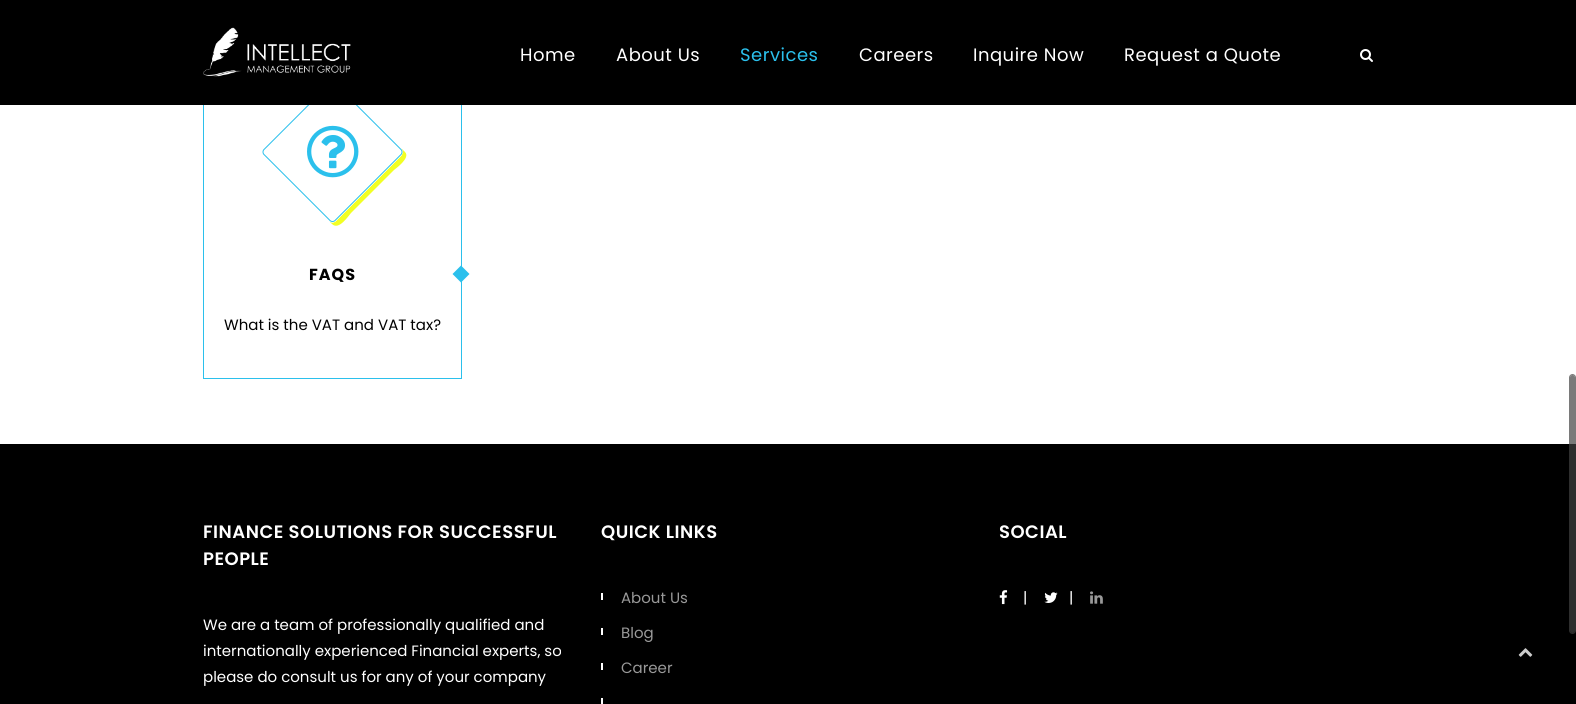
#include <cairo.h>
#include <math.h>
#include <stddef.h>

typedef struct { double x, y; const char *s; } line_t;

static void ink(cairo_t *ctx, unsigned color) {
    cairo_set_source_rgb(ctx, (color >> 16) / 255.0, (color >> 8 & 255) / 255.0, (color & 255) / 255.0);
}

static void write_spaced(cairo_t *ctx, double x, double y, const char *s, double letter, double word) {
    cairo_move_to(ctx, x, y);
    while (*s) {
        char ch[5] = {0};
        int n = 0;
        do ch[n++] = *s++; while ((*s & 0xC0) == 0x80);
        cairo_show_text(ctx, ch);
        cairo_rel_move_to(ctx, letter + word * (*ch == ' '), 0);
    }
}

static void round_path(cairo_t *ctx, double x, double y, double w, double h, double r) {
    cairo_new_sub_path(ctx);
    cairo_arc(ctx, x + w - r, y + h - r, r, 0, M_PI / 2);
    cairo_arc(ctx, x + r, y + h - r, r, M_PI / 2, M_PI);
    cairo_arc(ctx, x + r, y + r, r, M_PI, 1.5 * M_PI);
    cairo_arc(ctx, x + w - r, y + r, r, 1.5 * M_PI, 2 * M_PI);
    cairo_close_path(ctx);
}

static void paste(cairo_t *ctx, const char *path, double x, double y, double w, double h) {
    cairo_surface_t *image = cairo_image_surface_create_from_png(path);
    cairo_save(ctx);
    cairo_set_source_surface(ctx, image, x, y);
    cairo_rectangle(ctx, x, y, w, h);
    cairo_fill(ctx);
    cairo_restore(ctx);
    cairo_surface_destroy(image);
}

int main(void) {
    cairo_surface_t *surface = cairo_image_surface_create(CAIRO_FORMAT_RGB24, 1576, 704);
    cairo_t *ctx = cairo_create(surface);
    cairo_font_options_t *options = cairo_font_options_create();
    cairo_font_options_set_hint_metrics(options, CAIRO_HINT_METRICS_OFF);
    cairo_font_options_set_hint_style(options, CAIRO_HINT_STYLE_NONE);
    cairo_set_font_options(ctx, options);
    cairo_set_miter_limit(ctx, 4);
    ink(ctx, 0xFFFFFF);
    cairo_paint(ctx);
    cairo_rectangle(ctx, 203.5, 41.5, 258, 337);
    ink(ctx, 0x2BC0EC);
    cairo_set_line_width(ctx, 1);
    cairo_stroke(ctx);
    ink(ctx, 0xF2FF23);
    cairo_new_path(ctx);
    cairo_move_to(ctx, 340, 87);
    cairo_line_to(ctx, 339, 86);
    cairo_line_to(ctx, 401, 148);
    cairo_curve_to(ctx, 403, 150, 403, 154, 401, 156);
    cairo_line_to(ctx, 336, 221);
    cairo_curve_to(ctx, 334, 223, 331, 223, 329, 221);
    cairo_line_to(ctx, 266, 158);
    cairo_line_to(ctx, 332, 224);
    cairo_curve_to(ctx, 339, 231, 349, 215, 351, 213);
    cairo_line_to(ctx, 394, 170);
    cairo_curve_to(ctx, 395, 169, 411, 158, 405, 152);
    cairo_close_path(ctx);
    cairo_fill(ctx);
    ink(ctx, 0xFFFFFF);
    cairo_new_path(ctx);
    cairo_move_to(ctx, 336, 83);
    cairo_line_to(ctx, 401, 148);
    cairo_curve_to(ctx, 403, 150, 403, 154, 401, 156);
    cairo_line_to(ctx, 336, 221);
    cairo_curve_to(ctx, 334, 223, 331, 223, 329, 221);
    cairo_line_to(ctx, 264, 156);
    cairo_curve_to(ctx, 262, 154, 262, 150, 264, 148);
    cairo_line_to(ctx, 329, 83);
    cairo_curve_to(ctx, 331, 81, 334, 81, 336, 83);
    cairo_close_path(ctx);
    cairo_fill(ctx);
    cairo_new_path(ctx);
    cairo_move_to(ctx, 335.5, 84);
    cairo_line_to(ctx, 400.5, 149);
    cairo_curve_to(ctx, 402.5, 150.5, 402.5, 153.5, 400.5, 155);
    cairo_line_to(ctx, 335.5, 220);
    cairo_curve_to(ctx, 334, 222, 331, 222, 329.5, 220);
    cairo_line_to(ctx, 264.5, 155);
    cairo_curve_to(ctx, 262.5, 153.5, 262.5, 150.5, 264.5, 149);
    cairo_line_to(ctx, 329.5, 84);
    cairo_curve_to(ctx, 331, 82, 334, 82, 335.5, 84);
    cairo_close_path(ctx);
    ink(ctx, 0x2BC0EC);
    cairo_stroke(ctx);
    ink(ctx, 0x000000);
    cairo_rectangle(ctx, 0, 0, 1576, 105);
    cairo_fill(ctx);
    paste(ctx, "media/1.png", 203, 27, 148, 50);
    cairo_select_font_face(ctx, "Poppins", CAIRO_FONT_SLANT_NORMAL, CAIRO_FONT_WEIGHT_NORMAL);
    cairo_set_font_size(ctx, 18);
    ink(ctx, 0xFFFFFF);
    write_spaced(ctx, 520, 61, "Home", 0.5, 0);
    write_spaced(ctx, 616, 61, "About Us", 0.5, 0);
    ink(ctx, 0x2BC0EC);
    write_spaced(ctx, 740, 61, "Services", 0.5, 0);
    ink(ctx, 0xFFFFFF);
    {
        static const line_t items[] = {
            {859, 61, "Careers"},
            {973, 61, "Inquire Now"},
            {1124, 61, "Request a Quote"},
        };
        for (size_t i = 0; i < sizeof items / sizeof *items; i++) {
            write_spaced(ctx, items[i].x, items[i].y, items[i].s, 0.5, 0);
        }
    }
    paste(ctx, "media/2.png", 1360, 49, 13, 13);
    paste(ctx, "media/3.png", 307, 125, 52, 53);
    cairo_select_font_face(ctx, "Poppins", CAIRO_FONT_SLANT_NORMAL, CAIRO_FONT_WEIGHT_BOLD);
    cairo_set_font_size(ctx, 16);
    ink(ctx, 0x000000);
    write_spaced(ctx, 309, 280, "FAQS", 1, 0);
    ink(ctx, 0x2BC0EC);
    cairo_new_path(ctx);
    cairo_move_to(ctx, 461, 265.5);
    cairo_line_to(ctx, 469.5, 274);
    cairo_line_to(ctx, 461, 282.5);
    cairo_line_to(ctx, 452.5, 274);
    cairo_close_path(ctx);
    cairo_fill(ctx);
    cairo_select_font_face(ctx, "Poppins", CAIRO_FONT_SLANT_NORMAL, CAIRO_FONT_WEIGHT_NORMAL);
    cairo_set_font_size(ctx, 15);
    ink(ctx, 0x000000);
    cairo_move_to(ctx, 224, 330);
    cairo_show_text(ctx, "What is the VAT and VAT tax?");
    cairo_rectangle(ctx, 0, 444, 1576, 260);
    cairo_fill(ctx);
    cairo_select_font_face(ctx, "Poppins SemiBold", CAIRO_FONT_SLANT_NORMAL, CAIRO_FONT_WEIGHT_NORMAL);
    cairo_set_font_size(ctx, 18);
    ink(ctx, 0xFFFFFF);
    write_spaced(ctx, 203, 538, "FINANCE SOLUTIONS FOR SUCCESSFUL", 0.5, 0);
    write_spaced(ctx, 203, 565, "PEOPLE", 0.5, 0);
    cairo_select_font_face(ctx, "Poppins", CAIRO_FONT_SLANT_NORMAL, CAIRO_FONT_WEIGHT_NORMAL);
    cairo_set_font_size(ctx, 15);
    {
        static const line_t items[] = {
            {203, 630, "We are a team of professionally qualified and"},
            {203, 656, "internationally experienced Financial experts, so"},
            {203, 682, "please do consult us for any of your company"},
        };
        for (size_t i = 0; i < sizeof items / sizeof *items; i++) {
            cairo_move_to(ctx, items[i].x, items[i].y);
            cairo_show_text(ctx, items[i].s);
        }
    }
    cairo_select_font_face(ctx, "Poppins SemiBold", CAIRO_FONT_SLANT_NORMAL, CAIRO_FONT_WEIGHT_NORMAL);
    cairo_set_font_size(ctx, 18);
    write_spaced(ctx, 601, 538, "QUICK LINKS", 0.5, 0);
    cairo_rectangle(ctx, 601, 593, 2, 7);
    cairo_fill(ctx);
    cairo_select_font_face(ctx, "Poppins", CAIRO_FONT_SLANT_NORMAL, CAIRO_FONT_WEIGHT_NORMAL);
    cairo_set_font_size(ctx, 15);
    ink(ctx, 0x999999);
    cairo_move_to(ctx, 621, 603);
    cairo_show_text(ctx, "About Us");
    ink(ctx, 0xFFFFFF);
    cairo_rectangle(ctx, 601, 628, 2, 7);
    cairo_fill(ctx);
    ink(ctx, 0x999999);
    cairo_move_to(ctx, 621, 638);
    cairo_show_text(ctx, "Blog");
    ink(ctx, 0xFFFFFF);
    cairo_rectangle(ctx, 601, 663, 2, 7);
    cairo_fill(ctx);
    ink(ctx, 0x999999);
    cairo_move_to(ctx, 621, 673);
    cairo_show_text(ctx, "Career");
    ink(ctx, 0xFFFFFF);
    cairo_rectangle(ctx, 601, 698, 2, 6);
    cairo_fill(ctx);
    cairo_select_font_face(ctx, "Poppins SemiBold", CAIRO_FONT_SLANT_NORMAL, CAIRO_FONT_WEIGHT_NORMAL);
    cairo_set_font_size(ctx, 18);
    write_spaced(ctx, 999, 538, "SOCIAL", 0.5, 0);
    paste(ctx, "media/4.png", 999, 590, 9, 15);
    cairo_select_font_face(ctx, "Poppins", CAIRO_FONT_SLANT_NORMAL, CAIRO_FONT_WEIGHT_NORMAL);
    cairo_set_font_size(ctx, 15);
    cairo_move_to(ctx, 1023, 603);
    cairo_show_text(ctx, "|");
    paste(ctx, "media/5.png", 1044, 592, 14, 11);
    cairo_move_to(ctx, 1069, 603);
    cairo_show_text(ctx, "|");
    paste(ctx, "media/6.png", 1090, 591, 13, 13);
    cairo_set_source_rgba(ctx, 0.259, 0.259, 0.259, 0.7);
    round_path(ctx, 1570, 375, 5, 258, 2.5);
    cairo_fill(ctx);
    round_path(ctx, 1569.5, 374.5, 6, 259, 3);
    cairo_stroke(ctx);
    paste(ctx, "media/7.png", 1518, 648, 15, 9);
    cairo_surface_write_to_png(surface, "image.png");
    cairo_font_options_destroy(options);
    cairo_destroy(ctx);
    cairo_surface_destroy(surface);
    return 0;
}
